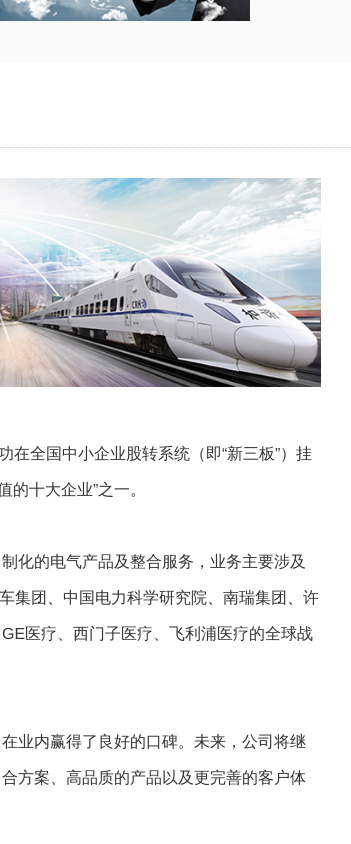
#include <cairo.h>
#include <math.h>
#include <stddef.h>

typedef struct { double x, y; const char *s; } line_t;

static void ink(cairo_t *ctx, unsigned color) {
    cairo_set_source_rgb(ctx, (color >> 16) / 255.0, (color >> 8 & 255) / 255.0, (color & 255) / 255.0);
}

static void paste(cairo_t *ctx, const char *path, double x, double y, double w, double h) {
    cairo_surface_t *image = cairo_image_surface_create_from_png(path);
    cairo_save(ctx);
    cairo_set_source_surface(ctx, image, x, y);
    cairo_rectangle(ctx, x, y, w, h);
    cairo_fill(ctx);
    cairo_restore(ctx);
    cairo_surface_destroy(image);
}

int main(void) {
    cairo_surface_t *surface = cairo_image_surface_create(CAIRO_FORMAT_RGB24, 351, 844);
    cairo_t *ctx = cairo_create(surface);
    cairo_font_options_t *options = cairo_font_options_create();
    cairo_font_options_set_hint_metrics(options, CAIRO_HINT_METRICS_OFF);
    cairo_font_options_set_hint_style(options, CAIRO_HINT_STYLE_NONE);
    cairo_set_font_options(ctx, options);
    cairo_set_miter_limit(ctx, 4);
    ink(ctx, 0xFAFAFA);
    cairo_paint(ctx);
    paste(ctx, "media/1.png", 0, 0, 250, 21);
    ink(ctx, 0xFFFFFF);
    cairo_rectangle(ctx, 0, 63, 351, 781);
    cairo_fill(ctx);
    cairo_new_path(ctx);
    cairo_move_to(ctx, -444, 147.5);
    cairo_line_to(ctx, 351, 147.5);
    ink(ctx, 0xCCCCCC);
    cairo_set_line_width(ctx, 1);
    cairo_set_dash(ctx, (double[]){1, 1}, 2, 0);
    cairo_stroke(ctx);
    paste(ctx, "media/2.png", 0, 178, 321, 209);
    cairo_select_font_face(ctx, "WenQuanYi Zen Hei Medium", CAIRO_FONT_SLANT_NORMAL, CAIRO_FONT_WEIGHT_NORMAL);
    cairo_set_font_size(ctx, 16);
    ink(ctx, 0x333333);
    cairo_move_to(ctx, -2, 459);
    cairo_show_text(ctx, "功在全国中小企业股转系统（即");
    cairo_select_font_face(ctx, "Liberation Sans", CAIRO_FONT_SLANT_NORMAL, CAIRO_FONT_WEIGHT_NORMAL);
    cairo_move_to(ctx, 222, 459);
    cairo_show_text(ctx, "“");
    cairo_select_font_face(ctx, "WenQuanYi Zen Hei Medium", CAIRO_FONT_SLANT_NORMAL, CAIRO_FONT_WEIGHT_NORMAL);
    cairo_move_to(ctx, 227, 459);
    cairo_show_text(ctx, "新三板");
    cairo_select_font_face(ctx, "Liberation Sans", CAIRO_FONT_SLANT_NORMAL, CAIRO_FONT_WEIGHT_NORMAL);
    cairo_move_to(ctx, 275, 459);
    cairo_show_text(ctx, "”");
    cairo_select_font_face(ctx, "WenQuanYi Zen Hei Medium", CAIRO_FONT_SLANT_NORMAL, CAIRO_FONT_WEIGHT_NORMAL);
    cairo_move_to(ctx, 280, 459);
    cairo_show_text(ctx, "）挂");
    cairo_move_to(ctx, -3, 495);
    cairo_show_text(ctx, "值的十大企业");
    cairo_select_font_face(ctx, "Liberation Sans", CAIRO_FONT_SLANT_NORMAL, CAIRO_FONT_WEIGHT_NORMAL);
    cairo_move_to(ctx, 93, 495);
    cairo_show_text(ctx, "”");
    cairo_select_font_face(ctx, "WenQuanYi Zen Hei Medium", CAIRO_FONT_SLANT_NORMAL, CAIRO_FONT_WEIGHT_NORMAL);
    {
        static const line_t items[] = {
            {98, 495, "之一。"},
            {2, 567, "制化的电气产品及整合服务，业务主要涉及"},
            {-1, 603, "车集团、中国电力科学研究院、南瑞集团、许"},
        };
        for (size_t i = 0; i < sizeof items / sizeof *items; i++) {
            cairo_move_to(ctx, items[i].x, items[i].y);
            cairo_show_text(ctx, items[i].s);
        }
    }
    cairo_select_font_face(ctx, "Liberation Sans", CAIRO_FONT_SLANT_NORMAL, CAIRO_FONT_WEIGHT_NORMAL);
    cairo_move_to(ctx, 2, 639);
    cairo_show_text(ctx, "GE");
    cairo_select_font_face(ctx, "WenQuanYi Zen Hei Medium", CAIRO_FONT_SLANT_NORMAL, CAIRO_FONT_WEIGHT_NORMAL);
    {
        static const line_t items[] = {
            {25, 639, "医疗、西门子医疗、飞利浦医疗的全球战"},
            {2, 747, "在业内赢得了良好的口碑。未来，公司将继"},
            {2, 783, "合方案、高品质的产品以及更完善的客户体"},
        };
        for (size_t i = 0; i < sizeof items / sizeof *items; i++) {
            cairo_move_to(ctx, items[i].x, items[i].y);
            cairo_show_text(ctx, items[i].s);
        }
    }
    cairo_surface_write_to_png(surface, "image.png");
    cairo_font_options_destroy(options);
    cairo_destroy(ctx);
    cairo_surface_destroy(surface);
    return 0;
}
